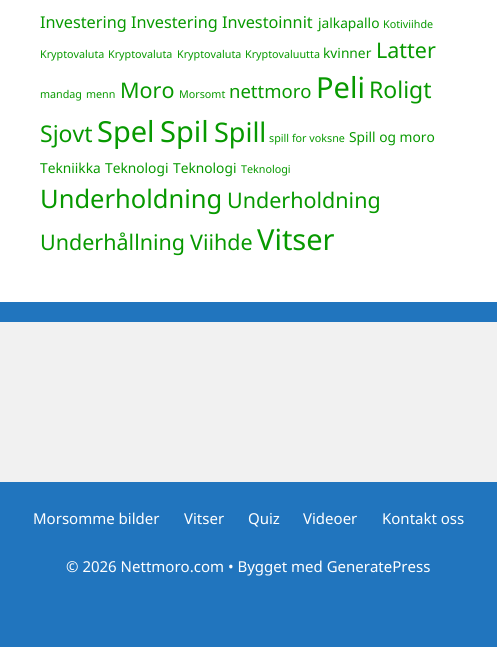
#include <cairo.h>
#include <math.h>
#include <stddef.h>

typedef struct { double x, y; const char *s; } line_t;

static void ink(cairo_t *ctx, unsigned color) {
    cairo_set_source_rgb(ctx, (color >> 16) / 255.0, (color >> 8 & 255) / 255.0, (color & 255) / 255.0);
}

int main(void) {
    cairo_surface_t *surface = cairo_image_surface_create(CAIRO_FORMAT_RGB24, 497, 647);
    cairo_t *ctx = cairo_create(surface);
    cairo_font_options_t *options = cairo_font_options_create();
    cairo_font_options_set_hint_metrics(options, CAIRO_HINT_METRICS_OFF);
    cairo_font_options_set_hint_style(options, CAIRO_HINT_STYLE_NONE);
    cairo_set_font_options(ctx, options);
    cairo_set_miter_limit(ctx, 4);
    ink(ctx, 0x2175BE);
    cairo_paint(ctx);
    ink(ctx, 0xFFFFFF);
    cairo_rectangle(ctx, 0, 0, 497, 302);
    cairo_fill(ctx);
    cairo_select_font_face(ctx, "Noto Sans", CAIRO_FONT_SLANT_NORMAL, CAIRO_FONT_WEIGHT_NORMAL);
    cairo_set_font_size(ctx, 16.25);
    ink(ctx, 0x079900);
    cairo_move_to(ctx, 40, 28);
    cairo_show_text(ctx, "Investering Investering Investoinnit");
    cairo_set_font_size(ctx, 13.75);
    cairo_move_to(ctx, 318, 28);
    cairo_show_text(ctx, "jalkapallo");
    cairo_set_font_size(ctx, 10.75);
    {
        static const line_t items[] = {
            {383, 28, "Kotiviihde"},
            {40, 58, "Kryptovaluta"},
            {108, 58, "Kryptovaluta"},
            {177, 58, "Kryptovaluta"},
            {245, 58, "Kryptovaluutta"},
        };
        for (size_t i = 0; i < sizeof items / sizeof *items; i++) {
            cairo_move_to(ctx, items[i].x, items[i].y);
            cairo_show_text(ctx, items[i].s);
        }
    }
    cairo_set_font_size(ctx, 13.75);
    cairo_move_to(ctx, 323, 58);
    cairo_show_text(ctx, "kvinner");
    cairo_set_font_size(ctx, 21.5);
    cairo_move_to(ctx, 376, 58);
    cairo_show_text(ctx, "Latter");
    cairo_set_font_size(ctx, 10.75);
    cairo_move_to(ctx, 40, 98);
    cairo_show_text(ctx, "mandag");
    cairo_move_to(ctx, 86, 98);
    cairo_show_text(ctx, "menn");
    cairo_set_font_size(ctx, 21.5);
    cairo_move_to(ctx, 120, 98);
    cairo_show_text(ctx, "Moro");
    cairo_set_font_size(ctx, 10.75);
    cairo_move_to(ctx, 179, 98);
    cairo_show_text(ctx, "Morsomt");
    cairo_set_font_size(ctx, 18.5);
    cairo_move_to(ctx, 229, 98);
    cairo_show_text(ctx, "nettmoro");
    cairo_set_font_size(ctx, 29);
    cairo_move_to(ctx, 316, 98);
    cairo_show_text(ctx, "Peli");
    cairo_set_font_size(ctx, 23);
    cairo_move_to(ctx, 369, 98);
    cairo_show_text(ctx, "Roligt");
    cairo_move_to(ctx, 40, 142);
    cairo_show_text(ctx, "Sjovt");
    cairo_set_font_size(ctx, 29);
    cairo_move_to(ctx, 97, 142);
    cairo_show_text(ctx, "Spel");
    cairo_move_to(ctx, 160, 142);
    cairo_show_text(ctx, "Spil");
    cairo_set_font_size(ctx, 27);
    cairo_move_to(ctx, 214, 142);
    cairo_show_text(ctx, "Spill");
    cairo_set_font_size(ctx, 10.75);
    cairo_move_to(ctx, 269, 142);
    cairo_show_text(ctx, "spill for voksne");
    cairo_set_font_size(ctx, 13.75);
    {
        static const line_t items[] = {
            {349, 142, "Spill og moro"},
            {40, 173, "Tekniikka"},
            {105, 173, "Teknologi"},
            {173, 173, "Teknologi"},
        };
        for (size_t i = 0; i < sizeof items / sizeof *items; i++) {
            cairo_move_to(ctx, items[i].x, items[i].y);
            cairo_show_text(ctx, items[i].s);
        }
    }
    cairo_set_font_size(ctx, 10.75);
    cairo_move_to(ctx, 241, 173);
    cairo_show_text(ctx, "Teknologi");
    cairo_set_font_size(ctx, 25.5);
    cairo_move_to(ctx, 40, 208);
    cairo_show_text(ctx, "Underholdning");
    cairo_set_font_size(ctx, 21.5);
    {
        static const line_t items[] = {
            {227, 208, "Underholdning"},
            {40, 250, "Underhållning"},
            {190, 250, "Viihde"},
        };
        for (size_t i = 0; i < sizeof items / sizeof *items; i++) {
            cairo_move_to(ctx, items[i].x, items[i].y);
            cairo_show_text(ctx, items[i].s);
        }
    }
    cairo_set_font_size(ctx, 29);
    cairo_move_to(ctx, 257, 250);
    cairo_show_text(ctx, "Vitser");
    ink(ctx, 0xF1F1F1);
    cairo_rectangle(ctx, 0, 322, 497, 160);
    cairo_fill(ctx);
    cairo_set_font_size(ctx, 15);
    ink(ctx, 0xFFFFFF);
    {
        static const line_t items[] = {
            {33, 524, "Morsomme bilder"},
            {184, 524, "Vitser"},
            {248, 524, "Quiz"},
            {303, 524, "Videoer"},
            {382, 524, "Kontakt oss"},
            {66, 572, "© 2026 Nettmoro.com • Bygget med GeneratePress"},
        };
        for (size_t i = 0; i < sizeof items / sizeof *items; i++) {
            cairo_move_to(ctx, items[i].x, items[i].y);
            cairo_show_text(ctx, items[i].s);
        }
    }
    cairo_surface_write_to_png(surface, "image.png");
    cairo_font_options_destroy(options);
    cairo_destroy(ctx);
    cairo_surface_destroy(surface);
    return 0;
}
